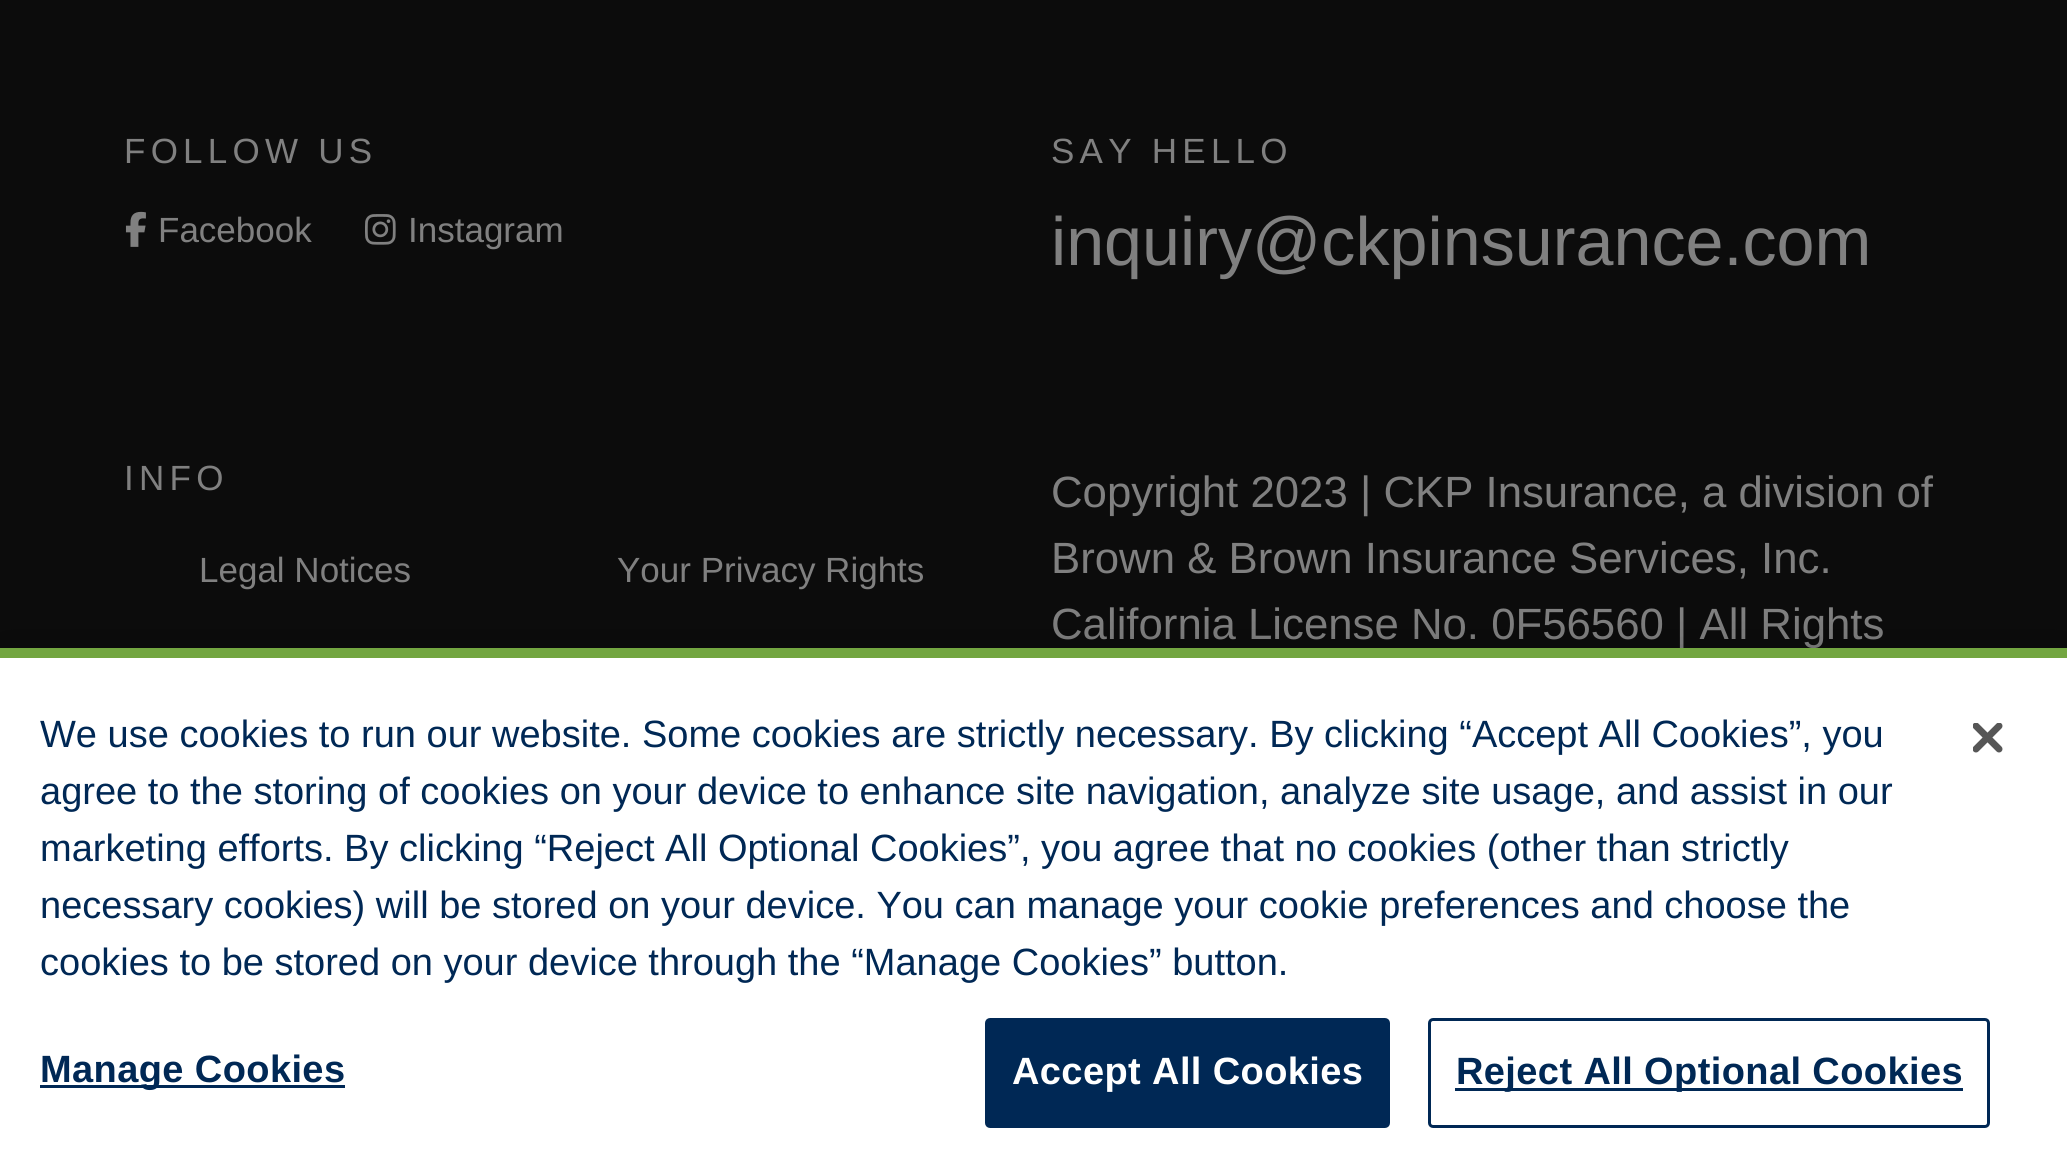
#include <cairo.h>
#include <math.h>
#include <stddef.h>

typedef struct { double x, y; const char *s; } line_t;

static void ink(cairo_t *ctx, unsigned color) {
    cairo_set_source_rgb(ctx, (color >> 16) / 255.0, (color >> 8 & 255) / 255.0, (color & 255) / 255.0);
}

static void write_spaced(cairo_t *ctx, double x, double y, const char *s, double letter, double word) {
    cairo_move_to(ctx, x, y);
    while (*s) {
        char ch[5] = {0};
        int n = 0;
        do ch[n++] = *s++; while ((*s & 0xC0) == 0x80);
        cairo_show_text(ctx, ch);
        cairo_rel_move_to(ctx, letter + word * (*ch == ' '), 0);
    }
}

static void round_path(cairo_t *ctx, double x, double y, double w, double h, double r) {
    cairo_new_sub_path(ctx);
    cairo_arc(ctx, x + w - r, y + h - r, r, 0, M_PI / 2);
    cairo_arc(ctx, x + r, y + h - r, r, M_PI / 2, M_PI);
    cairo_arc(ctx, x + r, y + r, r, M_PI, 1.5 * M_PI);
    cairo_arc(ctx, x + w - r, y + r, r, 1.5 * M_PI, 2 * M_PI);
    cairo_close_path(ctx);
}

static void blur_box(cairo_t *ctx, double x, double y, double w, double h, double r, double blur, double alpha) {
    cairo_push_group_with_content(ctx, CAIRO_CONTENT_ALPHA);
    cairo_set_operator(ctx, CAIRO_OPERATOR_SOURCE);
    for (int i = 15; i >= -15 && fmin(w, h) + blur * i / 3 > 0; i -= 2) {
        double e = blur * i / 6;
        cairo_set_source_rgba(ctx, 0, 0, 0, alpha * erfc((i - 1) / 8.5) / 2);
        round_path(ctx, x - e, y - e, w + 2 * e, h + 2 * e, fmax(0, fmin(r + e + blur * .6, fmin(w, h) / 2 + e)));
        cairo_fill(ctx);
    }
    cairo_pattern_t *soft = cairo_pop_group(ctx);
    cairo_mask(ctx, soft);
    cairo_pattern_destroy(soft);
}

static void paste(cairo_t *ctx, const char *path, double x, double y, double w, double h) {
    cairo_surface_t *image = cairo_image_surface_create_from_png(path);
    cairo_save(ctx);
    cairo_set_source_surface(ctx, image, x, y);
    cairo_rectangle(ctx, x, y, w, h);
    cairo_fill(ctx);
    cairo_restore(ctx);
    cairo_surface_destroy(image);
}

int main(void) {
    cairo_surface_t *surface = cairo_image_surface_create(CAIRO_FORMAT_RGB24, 2067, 1171);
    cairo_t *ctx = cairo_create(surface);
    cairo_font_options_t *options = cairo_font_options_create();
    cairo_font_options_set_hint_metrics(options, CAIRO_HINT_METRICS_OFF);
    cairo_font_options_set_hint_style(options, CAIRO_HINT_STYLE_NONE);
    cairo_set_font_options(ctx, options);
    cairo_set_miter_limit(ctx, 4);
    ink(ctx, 0x0C0C0C);
    cairo_paint(ctx);
    cairo_select_font_face(ctx, "Liberation Sans", CAIRO_FONT_SLANT_NORMAL, CAIRO_FONT_WEIGHT_NORMAL);
    cairo_set_font_size(ctx, 35);
    ink(ctx, 0x808080);
    write_spaced(ctx, 124, 163, "FOLLOW US", 5.25, 0);
    paste(ctx, "media/1.png", 125, 211, 21, 36);
    cairo_move_to(ctx, 158, 242);
    cairo_show_text(ctx, "Facebook");
    paste(ctx, "media/2.png", 365, 214, 31, 31);
    cairo_move_to(ctx, 408, 242);
    cairo_show_text(ctx, "Instagram");
    write_spaced(ctx, 1051, 163, "SAY HELLO", 5.25, 0);
    cairo_set_font_size(ctx, 68.25);
    cairo_move_to(ctx, 1051, 265);
    cairo_show_text(ctx, "inquiry@ckpinsurance.com");
    cairo_set_font_size(ctx, 35);
    write_spaced(ctx, 124, 490, "INFO", 5.25, 0);
    cairo_move_to(ctx, 199, 582);
    cairo_show_text(ctx, "Legal Notices");
    cairo_move_to(ctx, 617, 582);
    cairo_show_text(ctx, "Your Privacy Rights");
    cairo_set_font_size(ctx, 43.75);
    {
        static const line_t items[] = {
            {1051, 507, "Copyright 2023 | CKP Insurance, a division of"},
            {1051, 573, "Brown & Brown Insurance Services, Inc."},
            {1051, 639, "California License No. 0F56560 | All Rights"},
        };
        for (size_t i = 0; i < sizeof items / sizeof *items; i++) {
            cairo_move_to(ctx, items[i].x, items[i].y);
            cairo_show_text(ctx, items[i].s);
        }
    }
    ink(ctx, 0x000000);
    blur_box(ctx, 0, 648, 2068, 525, 0, 22.5, 0.2);
    ink(ctx, 0xFFFFFF);
    cairo_rectangle(ctx, 0, 658, 2067, 513);
    cairo_fill(ctx);
    ink(ctx, 0x73A641);
    cairo_rectangle(ctx, 0, 648, 2067, 10);
    cairo_fill(ctx);
    cairo_set_font_size(ctx, 38);
    ink(ctx, 0x002855);
    {
        static const line_t items[] = {
            {40, 747, "We use cookies to run our website. Some cookies are strictly necessary. By clicking “Accept All Cookies”, you"},
            {40, 804, "agree to the storing of cookies on your device to enhance site navigation, analyze site usage, and assist in our"},
            {40, 861, "marketing efforts. By clicking “Reject All Optional Cookies”, you agree that no cookies (other than strictly"},
            {40, 918, "necessary cookies) will be stored on your device. You can manage your cookie preferences and choose the"},
            {40, 975, "cookies to be stored on your device through the “Manage Cookies” button."},
        };
        for (size_t i = 0; i < sizeof items / sizeof *items; i++) {
            cairo_move_to(ctx, items[i].x, items[i].y);
            cairo_show_text(ctx, items[i].s);
        }
    }
    cairo_rectangle(ctx, 40, 1085, 305, 3);
    cairo_fill(ctx);
    cairo_select_font_face(ctx, "Liberation Sans", CAIRO_FONT_SLANT_NORMAL, CAIRO_FONT_WEIGHT_BOLD);
    write_spaced(ctx, 40, 1082, "Manage Cookies", 0.4, 0);
    round_path(ctx, 986.5, 1019.5, 402, 107, 3.5);
    cairo_fill_preserve(ctx);
    cairo_set_line_width(ctx, 3);
    cairo_stroke(ctx);
    ink(ctx, 0xFFFFFF);
    write_spaced(ctx, 1012, 1084, "Accept All Cookies", 0.4, 0);
    round_path(ctx, 1429.5, 1019.5, 559, 107, 3.5);
    ink(ctx, 0x002855);
    cairo_stroke(ctx);
    cairo_rectangle(ctx, 1455, 1088, 508, 3);
    cairo_fill(ctx);
    write_spaced(ctx, 1456, 1084, "Reject All Optional Cookies", 0.4, 0);
    paste(ctx, "media/3.png", 1973, 723, 30, 30);
    cairo_surface_write_to_png(surface, "image.png");
    cairo_font_options_destroy(options);
    cairo_destroy(ctx);
    cairo_surface_destroy(surface);
    return 0;
}
